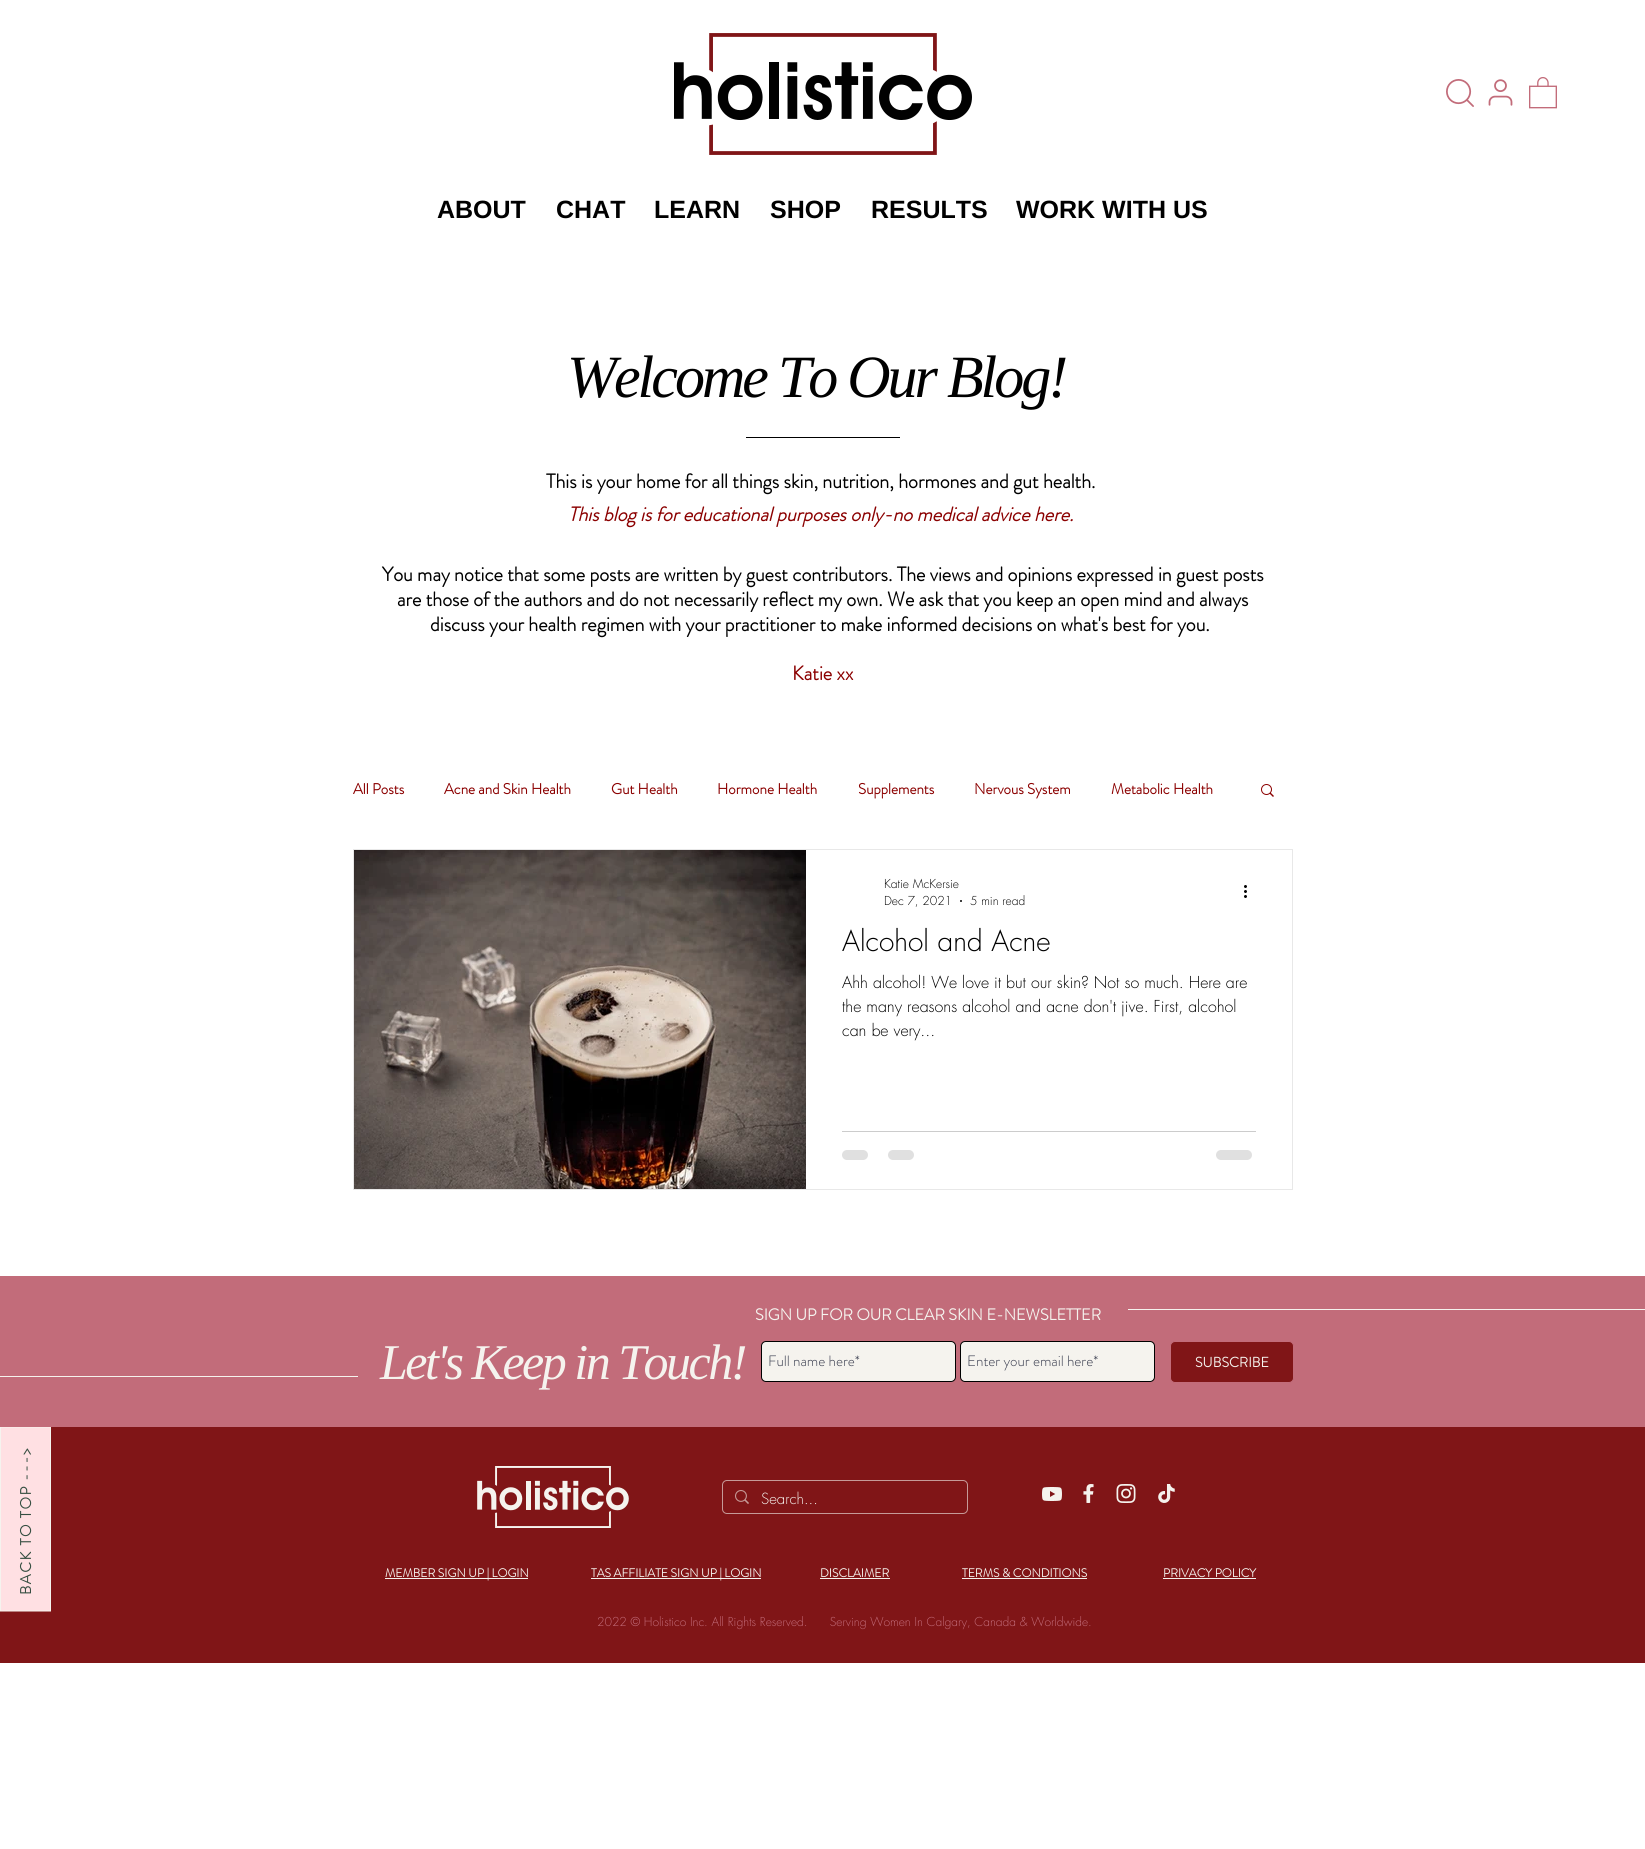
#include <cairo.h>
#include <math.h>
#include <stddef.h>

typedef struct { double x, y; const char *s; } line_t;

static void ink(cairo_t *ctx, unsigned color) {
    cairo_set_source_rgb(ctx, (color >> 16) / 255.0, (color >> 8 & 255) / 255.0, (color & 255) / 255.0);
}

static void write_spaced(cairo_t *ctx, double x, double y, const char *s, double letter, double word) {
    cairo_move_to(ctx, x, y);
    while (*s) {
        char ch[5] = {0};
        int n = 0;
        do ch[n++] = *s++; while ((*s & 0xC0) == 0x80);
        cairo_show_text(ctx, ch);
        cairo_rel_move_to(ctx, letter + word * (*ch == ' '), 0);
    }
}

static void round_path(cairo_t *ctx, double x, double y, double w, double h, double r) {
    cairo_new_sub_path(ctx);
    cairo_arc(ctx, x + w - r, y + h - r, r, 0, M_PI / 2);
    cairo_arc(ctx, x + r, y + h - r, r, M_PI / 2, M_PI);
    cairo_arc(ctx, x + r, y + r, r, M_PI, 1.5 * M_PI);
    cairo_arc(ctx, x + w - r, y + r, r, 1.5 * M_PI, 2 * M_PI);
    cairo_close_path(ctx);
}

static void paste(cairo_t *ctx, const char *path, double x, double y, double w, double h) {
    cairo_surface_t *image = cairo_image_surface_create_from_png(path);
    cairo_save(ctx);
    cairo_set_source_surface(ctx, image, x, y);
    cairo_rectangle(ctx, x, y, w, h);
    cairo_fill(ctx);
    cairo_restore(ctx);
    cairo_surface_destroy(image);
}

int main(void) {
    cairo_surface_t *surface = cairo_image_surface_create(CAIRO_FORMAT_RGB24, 1645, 1849);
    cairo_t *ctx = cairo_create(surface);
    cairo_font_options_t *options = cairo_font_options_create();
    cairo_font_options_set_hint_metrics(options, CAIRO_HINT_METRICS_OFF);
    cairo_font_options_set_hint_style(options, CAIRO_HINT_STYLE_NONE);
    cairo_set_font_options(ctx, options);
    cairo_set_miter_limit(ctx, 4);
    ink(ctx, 0xFFFFFF);
    cairo_paint(ctx);
    paste(ctx, "media/1.png", 1446, 79, 28, 28);
    paste(ctx, "media/2.png", 1488, 79, 25, 27);
    paste(ctx, "media/3.png", 1529, 77, 28, 32);
    paste(ctx, "media/4.png", 674, 33, 298, 122);
    cairo_select_font_face(ctx, "Liberation Sans", CAIRO_FONT_SLANT_NORMAL, CAIRO_FONT_WEIGHT_BOLD);
    cairo_set_font_size(ctx, 25);
    ink(ctx, 0x000000);
    {
        static const line_t items[] = {
            {437, 218, "ABOUT"},
            {556, 218, "CHAT"},
            {654, 218, "LEARN"},
            {770, 218, "SHOP"},
            {871, 218, "RESULTS"},
            {1016, 218, "WORK WITH US"},
        };
        for (size_t i = 0; i < sizeof items / sizeof *items; i++) {
            cairo_move_to(ctx, items[i].x, items[i].y);
            cairo_show_text(ctx, items[i].s);
        }
    }
    cairo_select_font_face(ctx, "Liberation Serif", CAIRO_FONT_SLANT_ITALIC, CAIRO_FONT_WEIGHT_NORMAL);
    cairo_set_font_size(ctx, 60);
    write_spaced(ctx, 567, 397, "Welcome To Our Blog!", -3, 0);
    cairo_rectangle(ctx, 746, 437, 154, 1);
    cairo_fill(ctx);
    cairo_select_font_face(ctx, "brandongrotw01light", CAIRO_FONT_SLANT_NORMAL, CAIRO_FONT_WEIGHT_BOLD);
    cairo_set_font_size(ctx, 20);
    cairo_move_to(ctx, 546, 488);
    cairo_show_text(ctx, "This is your home for all things skin, nutrition, hormones and gut health.");
    cairo_select_font_face(ctx, "brandongrotw01light", CAIRO_FONT_SLANT_ITALIC, CAIRO_FONT_WEIGHT_BOLD);
    ink(ctx, 0x8B0000);
    cairo_move_to(ctx, 568, 521);
    cairo_show_text(ctx, "This blog is for educational purposes only-no medical advice here.");
    cairo_select_font_face(ctx, "brandongrotw01light", CAIRO_FONT_SLANT_NORMAL, CAIRO_FONT_WEIGHT_BOLD);
    ink(ctx, 0x000000);
    {
        static const line_t items[] = {
            {382, 581, "You may notice that some posts are written by guest contributors. The views and opinions expressed in guest posts"},
            {397, 606, "are those of the authors and do not necessarily reflect my own. We ask that you keep an open mind and always"},
            {430, 631, "discuss your health regimen with your practitioner to make informed decisions on what's best for you."},
        };
        for (size_t i = 0; i < sizeof items / sizeof *items; i++) {
            cairo_move_to(ctx, items[i].x, items[i].y);
            cairo_show_text(ctx, items[i].s);
        }
    }
    ink(ctx, 0x8B0000);
    cairo_move_to(ctx, 792, 680);
    cairo_show_text(ctx, "Katie xx");
    cairo_set_font_size(ctx, 15);
    {
        static const line_t items[] = {
            {353, 794, "All Posts"},
            {444, 794, "Acne and Skin Health"},
            {611, 794, "Gut Health"},
            {717, 794, "Hormone Health"},
            {858, 794, "Supplements"},
            {974, 794, "Nervous System"},
            {1111, 794, "Metabolic Health"},
        };
        for (size_t i = 0; i < sizeof items / sizeof *items; i++) {
            cairo_move_to(ctx, items[i].x, items[i].y);
            cairo_show_text(ctx, items[i].s);
        }
    }
    paste(ctx, "media/5.png", 1261, 784, 13, 13);
    cairo_rectangle(ctx, 353.5, 849.5, 939, 340);
    ink(ctx, 0xE8E8E8);
    cairo_set_line_width(ctx, 1);
    cairo_stroke(ctx);
    paste(ctx, "media/6.png", 354, 850, 452, 339);
    cairo_select_font_face(ctx, "futura Light", CAIRO_FONT_SLANT_NORMAL, CAIRO_FONT_WEIGHT_NORMAL);
    cairo_set_font_size(ctx, 12);
    ink(ctx, 0x000000);
    cairo_move_to(ctx, 884, 888);
    cairo_show_text(ctx, "Katie McKersie");
    cairo_move_to(ctx, 884, 905);
    cairo_show_text(ctx, "Dec 7, 2021");
    cairo_new_path(ctx);
    cairo_arc(ctx, 961, 901, 1, 0, 2 * M_PI);
    cairo_fill(ctx);
    cairo_move_to(ctx, 970, 905);
    cairo_show_text(ctx, "5 min read");
    paste(ctx, "media/7.png", 1244, 885, 3, 13);
    cairo_set_font_size(ctx, 28);
    cairo_move_to(ctx, 842, 951);
    cairo_show_text(ctx, "Alcohol and Acne");
    cairo_set_font_size(ctx, 16);
    {
        static const line_t items[] = {
            {842, 988, "Ahh alcohol! We love it but our skin? Not so much. Here are"},
            {842, 1012, "the many reasons alcohol and acne don't jive. First, alcohol"},
            {842, 1036, "can be very..."},
        };
        for (size_t i = 0; i < sizeof items / sizeof *items; i++) {
            cairo_move_to(ctx, items[i].x, items[i].y);
            cairo_show_text(ctx, items[i].s);
        }
    }
    ink(ctx, 0xCCCCCC);
    cairo_rectangle(ctx, 842, 1131, 414, 1);
    cairo_fill(ctx);
    ink(ctx, 0xE0E0E0);
    round_path(ctx, 842, 1150, 26, 10, 5);
    cairo_fill(ctx);
    round_path(ctx, 888, 1150, 26, 10, 5);
    cairo_fill(ctx);
    round_path(ctx, 1216, 1150, 36, 10, 5);
    cairo_fill(ctx);
    ink(ctx, 0x801517);
    cairo_rectangle(ctx, 0, 1427, 1645, 236);
    cairo_fill(ctx);
    ink(ctx, 0xFFE0E3);
    cairo_rectangle(ctx, 1, 1427, 49, 184);
    cairo_fill(ctx);
    cairo_new_path(ctx);
    cairo_move_to(ctx, 0.5, 1611);
    cairo_line_to(ctx, 0.5, 1427);
    cairo_line_to(ctx, 50.5, 1427);
    cairo_line_to(ctx, 50.5, 1611);
    cairo_close_path(ctx);
    ink(ctx, 0xF5F3EE);
    cairo_stroke(ctx);
    ink(ctx, 0xC26C7A);
    cairo_rectangle(ctx, 0, 1276, 1645, 151);
    cairo_fill(ctx);
    cairo_select_font_face(ctx, "brandongrotw01light", CAIRO_FONT_SLANT_NORMAL, CAIRO_FONT_WEIGHT_BOLD);
    ink(ctx, 0xF5F3EE);
    cairo_move_to(ctx, 755, 1320);
    cairo_show_text(ctx, "SIGN UP FOR OUR CLEAR SKIN E-NEWSLETTER");
    cairo_rectangle(ctx, 1128, 1309, 517, 1);
    cairo_fill(ctx);
    cairo_select_font_face(ctx, "Liberation Serif", CAIRO_FONT_SLANT_ITALIC, CAIRO_FONT_WEIGHT_NORMAL);
    cairo_set_font_size(ctx, 50);
    write_spaced(ctx, 380, 1379, "Let's Keep in Touch!", -2.5, 0);
    round_path(ctx, 761.5, 1341.5, 194, 40, 4.5);
    cairo_fill_preserve(ctx);
    ink(ctx, 0x000000);
    cairo_stroke(ctx);
    cairo_select_font_face(ctx, "brandongrotw01light Light", CAIRO_FONT_SLANT_NORMAL, CAIRO_FONT_WEIGHT_NORMAL);
    cairo_set_font_size(ctx, 15);
    ink(ctx, 0x373B4D);
    cairo_move_to(ctx, 768, 1366);
    cairo_show_text(ctx, "Full name here*");
    ink(ctx, 0xF5F3EE);
    round_path(ctx, 960.5, 1341.5, 194, 40, 4.5);
    cairo_fill_preserve(ctx);
    ink(ctx, 0x000000);
    cairo_stroke(ctx);
    ink(ctx, 0x373B4D);
    cairo_move_to(ctx, 967, 1366);
    cairo_show_text(ctx, "Enter your email here*");
    ink(ctx, 0x801517);
    round_path(ctx, 1170.5, 1341.5, 123, 41, 4.5);
    cairo_fill_preserve(ctx);
    ink(ctx, 0xC26C7A);
    cairo_stroke(ctx);
    cairo_select_font_face(ctx, "brandongrotw01light", CAIRO_FONT_SLANT_NORMAL, CAIRO_FONT_WEIGHT_BOLD);
    cairo_set_font_size(ctx, 14);
    ink(ctx, 0xF5F3EE);
    cairo_move_to(ctx, 1195, 1367);
    cairo_show_text(ctx, "SUBSCRIBE");
    cairo_rectangle(ctx, 0, 1376, 358, 1);
    cairo_fill(ctx);
    cairo_set_font_size(ctx, 15);
    ink(ctx, 0x354E41);
    cairo_save(ctx);
    cairo_translate(ctx, 31, 1481);
    cairo_rotate(ctx, -90 * M_PI / 180);
    write_spaced(ctx, 0, 0, "--->", 1.5, 0);
    cairo_restore(ctx);
    cairo_save(ctx);
    cairo_translate(ctx, 31, 1595);
    cairo_rotate(ctx, -90 * M_PI / 180);
    write_spaced(ctx, 0, 0, "BACK TO TOP", 1.5, 0);
    cairo_restore(ctx);
    paste(ctx, "media/8.png", 477, 1466, 152, 62);
    round_path(ctx, 722.5, 1480.5, 245, 33, 4.5);
    ink(ctx, 0xC69A98);
    cairo_stroke(ctx);
    paste(ctx, "media/9.png", 735, 1490, 14, 14);
    cairo_select_font_face(ctx, "futura Light", CAIRO_FONT_SLANT_NORMAL, CAIRO_FONT_WEIGHT_NORMAL);
    ink(ctx, 0xF5F3EE);
    cairo_move_to(ctx, 761, 1504);
    cairo_show_text(ctx, "Search...");
    paste(ctx, "media/10.png", 1042, 1487, 20, 14);
    paste(ctx, "media/11.png", 1083, 1484, 11, 19);
    paste(ctx, "media/12.png", 1116, 1484, 20, 19);
    paste(ctx, "media/13.png", 1158, 1484, 17, 19);
    cairo_rectangle(ctx, 385, 1578, 143, 1);
    cairo_fill(ctx);
    cairo_select_font_face(ctx, "brandongrotw01light", CAIRO_FONT_SLANT_NORMAL, CAIRO_FONT_WEIGHT_BOLD);
    cairo_set_font_size(ctx, 12);
    cairo_move_to(ctx, 385, 1577);
    cairo_show_text(ctx, "MEMBER SIGN UP | LOGIN");
    cairo_rectangle(ctx, 591, 1578, 170, 1);
    cairo_fill(ctx);
    cairo_move_to(ctx, 591, 1577);
    cairo_show_text(ctx, "TAS AFFILIATE SIGN UP | LOGIN");
    cairo_move_to(ctx, 820, 1577);
    cairo_show_text(ctx, "DISCLAIMER");
    cairo_rectangle(ctx, 820, 1578, 70, 1);
    cairo_fill(ctx);
    cairo_move_to(ctx, 962, 1577);
    cairo_show_text(ctx, "TERMS & CONDITIONS");
    cairo_rectangle(ctx, 962, 1578, 125, 1);
    cairo_fill(ctx);
    cairo_move_to(ctx, 1163, 1577);
    cairo_show_text(ctx, "PRIVACY POLICY");
    cairo_rectangle(ctx, 1163, 1578, 93, 1);
    cairo_fill(ctx);
    cairo_select_font_face(ctx, "futura Light", CAIRO_FONT_SLANT_NORMAL, CAIRO_FONT_WEIGHT_NORMAL);
    ink(ctx, 0xC26C7A);
    cairo_move_to(ctx, 597, 1626);
    cairo_show_text(ctx, "2022 © Holistico Inc. All Rights Reserved.      Serving Women In Calgary, Canada & Worldwide.");
    cairo_surface_write_to_png(surface, "image.png");
    cairo_font_options_destroy(options);
    cairo_destroy(ctx);
    cairo_surface_destroy(surface);
    return 0;
}
